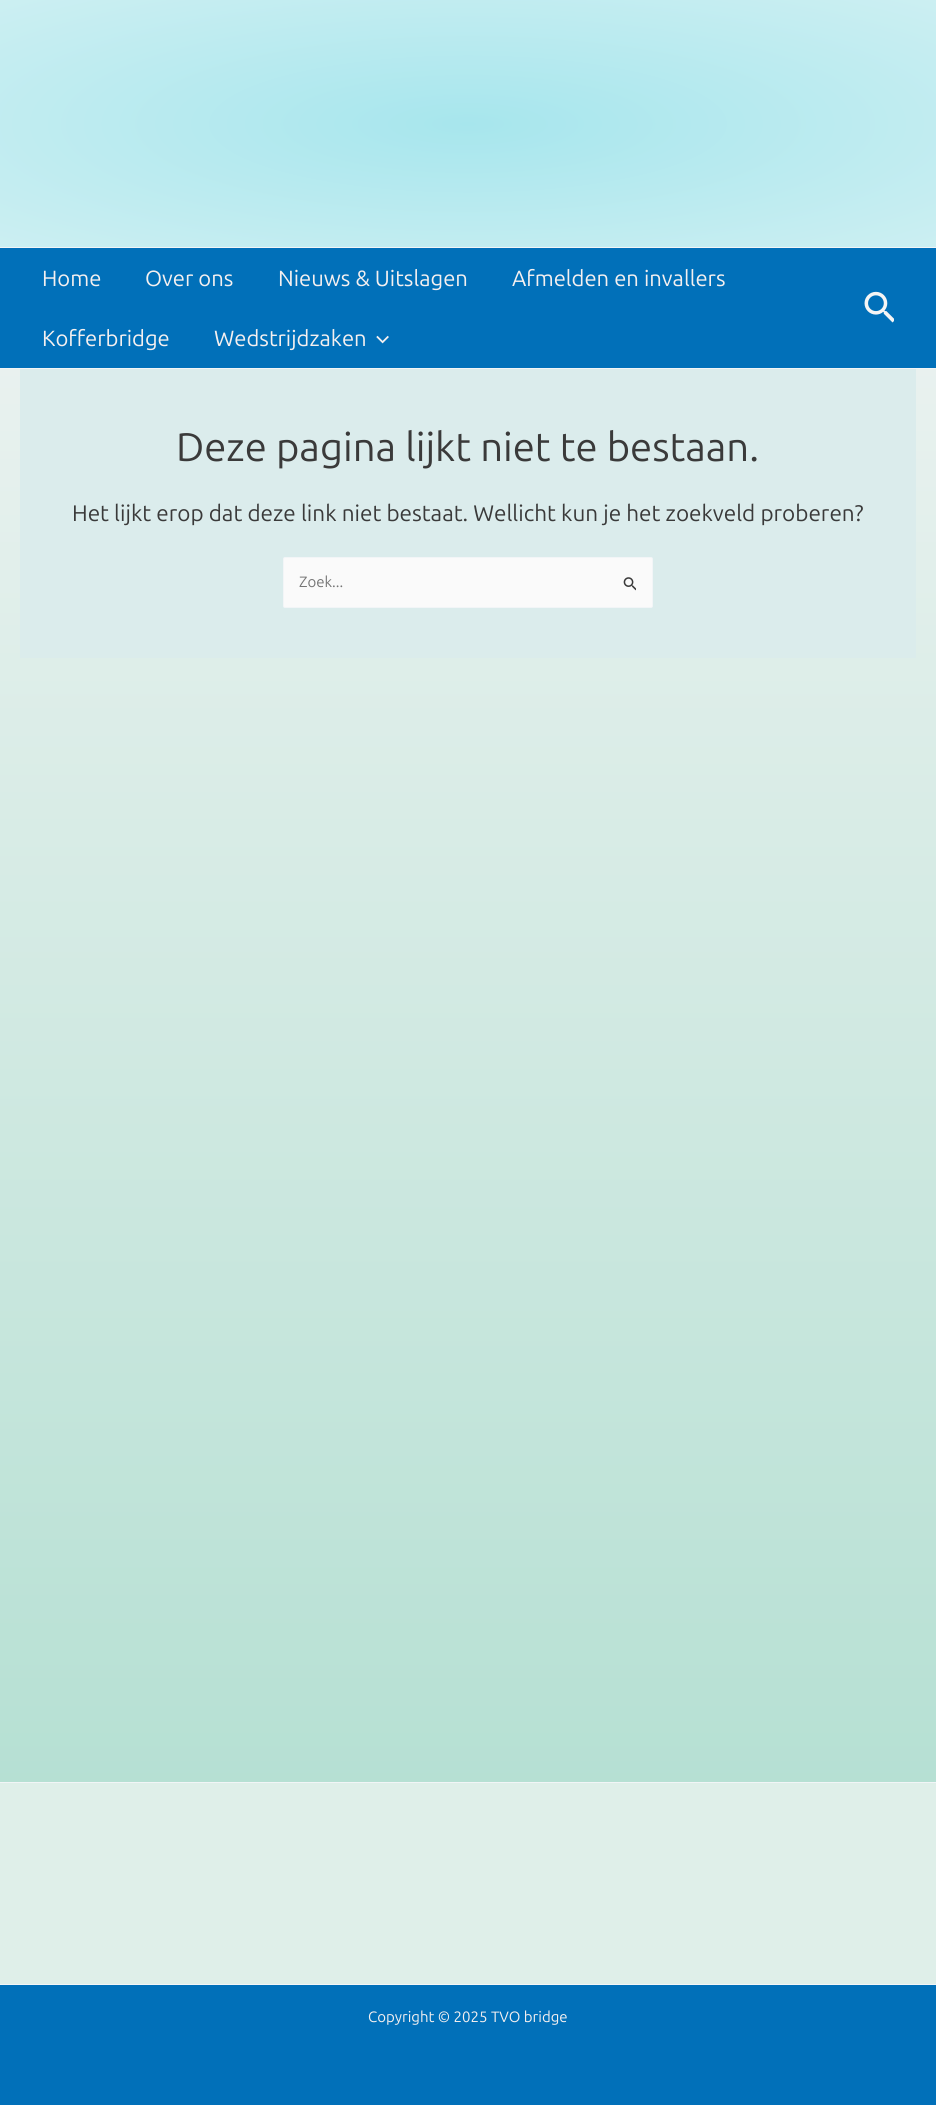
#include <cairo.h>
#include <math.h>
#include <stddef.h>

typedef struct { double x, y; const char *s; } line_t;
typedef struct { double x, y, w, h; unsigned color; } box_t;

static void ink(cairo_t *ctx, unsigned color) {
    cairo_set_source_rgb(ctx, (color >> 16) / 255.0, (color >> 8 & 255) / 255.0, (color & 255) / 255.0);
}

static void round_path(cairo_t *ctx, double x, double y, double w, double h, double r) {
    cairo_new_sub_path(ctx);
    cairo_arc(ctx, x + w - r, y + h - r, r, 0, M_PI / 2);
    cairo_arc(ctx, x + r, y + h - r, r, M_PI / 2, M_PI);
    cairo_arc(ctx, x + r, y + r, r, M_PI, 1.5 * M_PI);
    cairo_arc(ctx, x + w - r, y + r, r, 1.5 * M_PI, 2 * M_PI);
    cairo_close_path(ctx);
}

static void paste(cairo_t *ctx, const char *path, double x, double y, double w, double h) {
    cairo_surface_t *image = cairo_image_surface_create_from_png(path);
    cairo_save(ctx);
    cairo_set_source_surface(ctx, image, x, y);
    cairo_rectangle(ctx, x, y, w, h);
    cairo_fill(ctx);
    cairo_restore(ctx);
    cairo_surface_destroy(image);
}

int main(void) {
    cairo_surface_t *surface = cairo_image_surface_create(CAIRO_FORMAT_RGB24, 936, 2105);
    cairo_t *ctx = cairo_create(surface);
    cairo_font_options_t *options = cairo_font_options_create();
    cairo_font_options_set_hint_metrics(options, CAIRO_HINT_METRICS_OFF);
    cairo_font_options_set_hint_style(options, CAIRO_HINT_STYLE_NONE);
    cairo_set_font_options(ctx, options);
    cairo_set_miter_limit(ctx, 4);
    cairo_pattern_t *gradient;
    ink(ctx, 0xFFFFFF);
    cairo_paint(ctx);
    gradient = cairo_pattern_create_linear(468, 0, 468, 2105);
    cairo_pattern_add_color_stop_rgba(gradient, 0, 0.965, 0.965, 0.965, 1);
    cairo_pattern_add_color_stop_rgba(gradient, 1, 0.667, 0.863, 0.804, 1);
    cairo_set_source(ctx, gradient);
    cairo_pattern_destroy(gradient);
    cairo_rectangle(ctx, 0, 369, 936, 1413);
    cairo_fill(ctx);
    gradient = cairo_pattern_create_radial(0, 0, 0, 0, 0, 1);
    cairo_pattern_set_matrix(gradient, &(cairo_matrix_t){1.0 / 662, 0, 0, 1.0 / 175, -1.0 * 468 / 662, -1.0 * 124 / 175});
    cairo_pattern_add_color_stop_rgba(gradient, 0, 0.655, 0.902, 0.929, 1);
    cairo_pattern_add_color_stop_rgba(gradient, 1, 0.8, 0.937, 0.949, 1);
    cairo_set_source(ctx, gradient);
    cairo_pattern_destroy(gradient);
    cairo_rectangle(ctx, 0, 0, 936, 247);
    cairo_fill(ctx);
    {
        static const box_t items[] = {
            {0, 247, 936, 1, 0xF2F5F7},
            {0, 248, 936, 120, 0x0170B9},
            {0, 368, 936, 1, 0xF2F5F7},
        };
        for (size_t i = 0; i < sizeof items / sizeof *items; i++) {
            ink(ctx, items[i].color);
            cairo_rectangle(ctx, items[i].x, items[i].y, items[i].w, items[i].h);
            cairo_fill(ctx);
        }
    }
    cairo_select_font_face(ctx, "Ubuntu", CAIRO_FONT_SLANT_NORMAL, CAIRO_FONT_WEIGHT_NORMAL);
    cairo_set_font_size(ctx, 22);
    ink(ctx, 0xF5F0F0);
    {
        static const line_t items[] = {
            {42, 286, "Home"},
            {145, 286, "Over ons"},
            {278, 286, "Nieuws & Uitslagen"},
            {512, 286, "Afmelden en invallers"},
            {42, 346, "Kofferbridge"},
            {214, 346, "Wedstrijdzaken"},
        };
        for (size_t i = 0; i < sizeof items / sizeof *items; i++) {
            cairo_move_to(ctx, items[i].x, items[i].y);
            cairo_show_text(ctx, items[i].s);
        }
    }
    paste(ctx, "media/1.png", 376, 335, 13, 9);
    paste(ctx, "media/2.png", 864, 291, 30, 32);
    ink(ctx, 0xDBECEC);
    cairo_rectangle(ctx, 20, 369, 896, 289);
    cairo_fill(ctx);
    cairo_set_font_size(ctx, 40);
    ink(ctx, 0x3A3A3A);
    cairo_move_to(ctx, 176, 461);
    cairo_show_text(ctx, "Deze pagina lijkt niet te bestaan.");
    cairo_set_font_size(ctx, 22.5);
    cairo_move_to(ctx, 72, 521);
    cairo_show_text(ctx, "Het lijkt erop dat deze link niet bestaat. Wellicht kun je het zoekveld proberen?");
    ink(ctx, 0xFAFAFA);
    round_path(ctx, 283.5, 557.5, 369, 50, 1.5);
    cairo_fill_preserve(ctx);
    ink(ctx, 0xF2F5F7);
    cairo_set_line_width(ctx, 1);
    cairo_stroke(ctx);
    cairo_set_font_size(ctx, 15);
    ink(ctx, 0x757575);
    cairo_move_to(ctx, 299, 587);
    cairo_show_text(ctx, "Zoek...");
    paste(ctx, "media/3.png", 623, 577, 13, 14);
    {
        static const box_t items[] = {
            {0, 1783, 936, 201, 0xDFEFE9},
            {0, 1782, 936, 1, 0xF2F5F7},
            {0, 1985, 936, 120, 0x0170B9},
            {0, 1984, 936, 1, 0xF2F5F7},
        };
        for (size_t i = 0; i < sizeof items / sizeof *items; i++) {
            ink(ctx, items[i].color);
            cairo_rectangle(ctx, items[i].x, items[i].y, items[i].w, items[i].h);
            cairo_fill(ctx);
        }
    }
    ink(ctx, 0xF5F0F0);
    cairo_move_to(ctx, 368, 2022);
    cairo_show_text(ctx, "Copyright © 2025 TVO bridge");
    cairo_surface_write_to_png(surface, "image.png");
    cairo_font_options_destroy(options);
    cairo_destroy(ctx);
    cairo_surface_destroy(surface);
    return 0;
}
